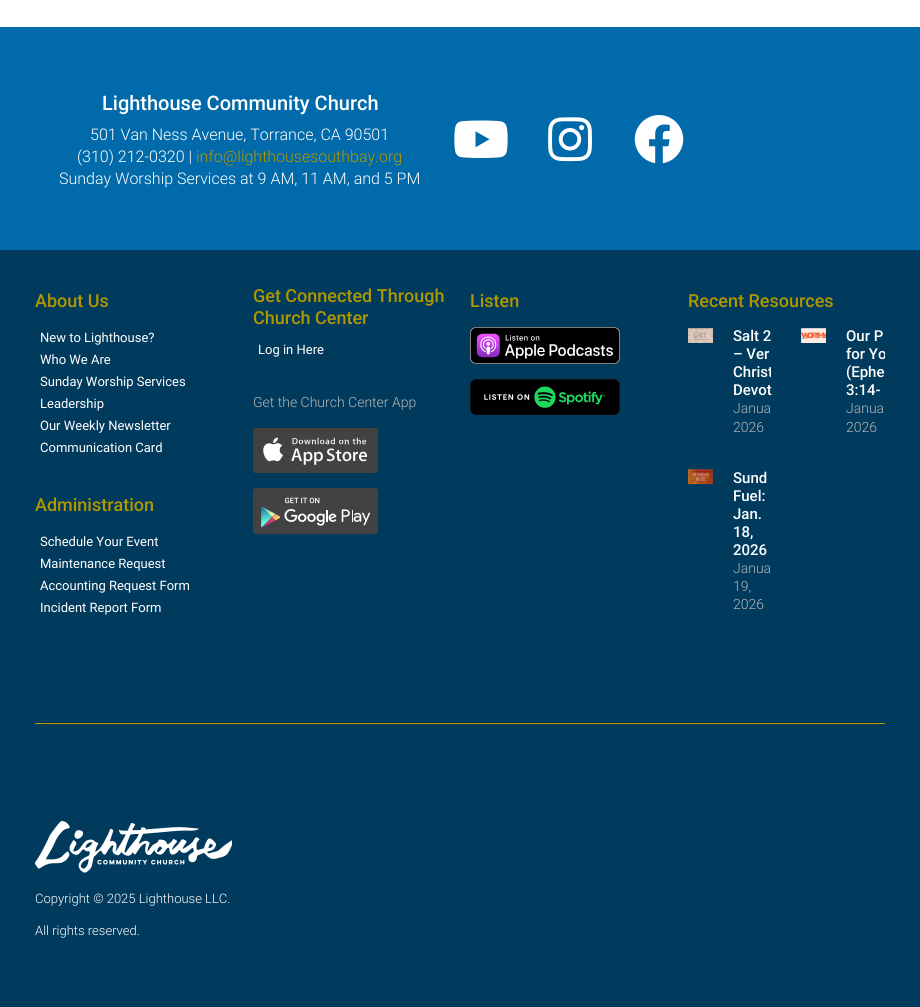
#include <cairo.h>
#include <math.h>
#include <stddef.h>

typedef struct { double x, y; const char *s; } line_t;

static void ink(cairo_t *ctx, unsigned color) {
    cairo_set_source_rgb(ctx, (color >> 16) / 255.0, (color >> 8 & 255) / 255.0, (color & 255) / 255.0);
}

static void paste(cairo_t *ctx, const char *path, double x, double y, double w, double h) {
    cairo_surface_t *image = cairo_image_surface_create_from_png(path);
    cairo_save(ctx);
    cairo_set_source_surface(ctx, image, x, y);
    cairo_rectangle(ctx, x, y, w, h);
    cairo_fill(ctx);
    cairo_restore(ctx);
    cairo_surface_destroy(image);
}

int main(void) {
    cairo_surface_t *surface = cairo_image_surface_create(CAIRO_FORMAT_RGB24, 920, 1007);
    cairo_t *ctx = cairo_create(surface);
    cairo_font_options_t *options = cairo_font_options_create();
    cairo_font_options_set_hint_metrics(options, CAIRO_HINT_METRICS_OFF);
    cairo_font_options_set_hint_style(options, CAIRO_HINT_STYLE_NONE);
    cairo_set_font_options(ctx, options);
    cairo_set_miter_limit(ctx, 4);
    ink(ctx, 0xFFFFFF);
    cairo_paint(ctx);
    ink(ctx, 0x006AAA);
    cairo_rectangle(ctx, 0, 27, 920, 223);
    cairo_fill(ctx);
    cairo_select_font_face(ctx, "Roboto Medium", CAIRO_FONT_SLANT_NORMAL, CAIRO_FONT_WEIGHT_NORMAL);
    cairo_set_font_size(ctx, 20);
    ink(ctx, 0xFFFFFF);
    cairo_move_to(ctx, 102, 110);
    cairo_show_text(ctx, "Lighthouse Community Church");
    cairo_select_font_face(ctx, "Roboto Light", CAIRO_FONT_SLANT_NORMAL, CAIRO_FONT_WEIGHT_NORMAL);
    cairo_set_font_size(ctx, 16);
    cairo_move_to(ctx, 90, 140);
    cairo_show_text(ctx, "501 Van Ness Avenue, Torrance, CA 90501");
    cairo_move_to(ctx, 77, 162);
    cairo_show_text(ctx, "(310) 212-0320 |");
    ink(ctx, 0xB09700);
    cairo_move_to(ctx, 196, 162);
    cairo_show_text(ctx, "info@lighthousesouthbay.org");
    ink(ctx, 0xFFFFFF);
    cairo_move_to(ctx, 59, 184);
    cairo_show_text(ctx, "Sunday Worship Services at 9 AM, 11 AM, and 5 PM");
    paste(ctx, "media/1.png", 454, 120, 54, 38);
    paste(ctx, "media/2.png", 548, 117, 44, 45);
    paste(ctx, "media/3.png", 634, 115, 50, 49);
    ink(ctx, 0x003A5D);
    cairo_rectangle(ctx, 0, 250, 920, 757);
    cairo_fill(ctx);
    cairo_select_font_face(ctx, "Roboto Medium", CAIRO_FONT_SLANT_NORMAL, CAIRO_FONT_WEIGHT_NORMAL);
    cairo_set_font_size(ctx, 18);
    ink(ctx, 0xB09700);
    cairo_move_to(ctx, 35, 307);
    cairo_show_text(ctx, "About Us");
    cairo_select_font_face(ctx, "Roboto", CAIRO_FONT_SLANT_NORMAL, CAIRO_FONT_WEIGHT_NORMAL);
    cairo_set_font_size(ctx, 13);
    ink(ctx, 0xFFFFFF);
    {
        static const line_t items[] = {
            {40, 342, "New to Lighthouse?"},
            {40, 364, "Who We Are"},
            {40, 386, "Sunday Worship Services"},
            {40, 408, "Leadership"},
            {40, 430, "Our Weekly Newsletter"},
            {40, 452, "Communication Card"},
        };
        for (size_t i = 0; i < sizeof items / sizeof *items; i++) {
            cairo_move_to(ctx, items[i].x, items[i].y);
            cairo_show_text(ctx, items[i].s);
        }
    }
    cairo_select_font_face(ctx, "Roboto Medium", CAIRO_FONT_SLANT_NORMAL, CAIRO_FONT_WEIGHT_NORMAL);
    cairo_set_font_size(ctx, 18);
    ink(ctx, 0xB09700);
    cairo_move_to(ctx, 35, 511);
    cairo_show_text(ctx, "Administration");
    cairo_select_font_face(ctx, "Roboto", CAIRO_FONT_SLANT_NORMAL, CAIRO_FONT_WEIGHT_NORMAL);
    cairo_set_font_size(ctx, 13);
    ink(ctx, 0xFFFFFF);
    {
        static const line_t items[] = {
            {40, 546, "Schedule Your Event"},
            {40, 568, "Maintenance Request"},
            {40, 590, "Accounting Request Form"},
            {40, 612, "Incident Report Form"},
        };
        for (size_t i = 0; i < sizeof items / sizeof *items; i++) {
            cairo_move_to(ctx, items[i].x, items[i].y);
            cairo_show_text(ctx, items[i].s);
        }
    }
    cairo_select_font_face(ctx, "Roboto Medium", CAIRO_FONT_SLANT_NORMAL, CAIRO_FONT_WEIGHT_NORMAL);
    cairo_set_font_size(ctx, 18);
    ink(ctx, 0xB09700);
    cairo_move_to(ctx, 253, 302);
    cairo_show_text(ctx, "Get Connected Through");
    cairo_move_to(ctx, 253, 324);
    cairo_show_text(ctx, "Church Center");
    cairo_select_font_face(ctx, "Roboto", CAIRO_FONT_SLANT_NORMAL, CAIRO_FONT_WEIGHT_NORMAL);
    cairo_set_font_size(ctx, 13);
    ink(ctx, 0xFFFFFF);
    cairo_move_to(ctx, 258, 354);
    cairo_show_text(ctx, "Log in Here");
    cairo_select_font_face(ctx, "Roboto Light", CAIRO_FONT_SLANT_NORMAL, CAIRO_FONT_WEIGHT_NORMAL);
    cairo_set_font_size(ctx, 14);
    ink(ctx, 0xB6B6B6);
    cairo_move_to(ctx, 253, 407);
    cairo_show_text(ctx, "Get the Church Center App");
    paste(ctx, "media/4.png", 253, 428, 125, 45);
    paste(ctx, "media/5.png", 253, 488, 125, 46);
    cairo_select_font_face(ctx, "Roboto Medium", CAIRO_FONT_SLANT_NORMAL, CAIRO_FONT_WEIGHT_NORMAL);
    cairo_set_font_size(ctx, 18);
    ink(ctx, 0xB09700);
    cairo_move_to(ctx, 470, 307);
    cairo_show_text(ctx, "Listen");
    paste(ctx, "media/6.png", 470, 327, 150, 37);
    paste(ctx, "media/7.png", 470, 379, 150, 36);
    cairo_move_to(ctx, 688, 307);
    cairo_show_text(ctx, "Recent Resources");
    paste(ctx, "media/8.png", 688, 328, 25, 15);
    cairo_set_font_size(ctx, 15);
    ink(ctx, 0xFFFFFF);
    cairo_move_to(ctx, 733, 341);
    cairo_show_text(ctx, "Salt 2");
    cairo_move_to(ctx, 733, 359);
    cairo_show_text(ctx, "– Ver");
    cairo_save(ctx);
    cairo_rectangle(ctx, 688, 327, 83, 122);
    cairo_clip(ctx);
    cairo_move_to(ctx, 733, 377);
    cairo_show_text(ctx, "Christ");
    cairo_restore(ctx);
    cairo_move_to(ctx, 733, 395);
    cairo_show_text(ctx, "Devot");
    cairo_select_font_face(ctx, "Roboto Light", CAIRO_FONT_SLANT_NORMAL, CAIRO_FONT_WEIGHT_NORMAL);
    cairo_set_font_size(ctx, 14);
    ink(ctx, 0xB6B6B6);
    cairo_move_to(ctx, 733, 413);
    cairo_show_text(ctx, "Janua");
    cairo_move_to(ctx, 733, 432);
    cairo_show_text(ctx, "2026");
    paste(ctx, "media/9.png", 801, 328, 25, 15);
    cairo_select_font_face(ctx, "Roboto Medium", CAIRO_FONT_SLANT_NORMAL, CAIRO_FONT_WEIGHT_NORMAL);
    cairo_set_font_size(ctx, 15);
    ink(ctx, 0xFFFFFF);
    cairo_move_to(ctx, 846, 341);
    cairo_show_text(ctx, "Our P");
    cairo_save(ctx);
    cairo_rectangle(ctx, 801, 327, 84, 122);
    cairo_clip(ctx);
    cairo_move_to(ctx, 846, 359);
    cairo_show_text(ctx, "for Yo");
    cairo_restore(ctx);
    cairo_move_to(ctx, 846, 377);
    cairo_show_text(ctx, "(Ephe");
    cairo_move_to(ctx, 846, 395);
    cairo_show_text(ctx, "3:14-");
    cairo_select_font_face(ctx, "Roboto Light", CAIRO_FONT_SLANT_NORMAL, CAIRO_FONT_WEIGHT_NORMAL);
    cairo_set_font_size(ctx, 14);
    ink(ctx, 0xB6B6B6);
    cairo_move_to(ctx, 846, 413);
    cairo_show_text(ctx, "Janua");
    cairo_move_to(ctx, 846, 432);
    cairo_show_text(ctx, "2026");
    paste(ctx, "media/10.png", 688, 469, 25, 15);
    cairo_select_font_face(ctx, "Roboto Medium", CAIRO_FONT_SLANT_NORMAL, CAIRO_FONT_WEIGHT_NORMAL);
    cairo_set_font_size(ctx, 15);
    ink(ctx, 0xFFFFFF);
    {
        static const line_t items[] = {
            {733, 483, "Sund"},
            {733, 501, "Fuel:"},
            {733, 519, "Jan."},
            {733, 537, "18,"},
            {733, 555, "2026"},
        };
        for (size_t i = 0; i < sizeof items / sizeof *items; i++) {
            cairo_move_to(ctx, items[i].x, items[i].y);
            cairo_show_text(ctx, items[i].s);
        }
    }
    cairo_select_font_face(ctx, "Roboto Light", CAIRO_FONT_SLANT_NORMAL, CAIRO_FONT_WEIGHT_NORMAL);
    cairo_set_font_size(ctx, 14);
    ink(ctx, 0xB6B6B6);
    {
        static const line_t items[] = {
            {733, 573, "Janua"},
            {733, 591, "19,"},
            {733, 609, "2026"},
        };
        for (size_t i = 0; i < sizeof items / sizeof *items; i++) {
            cairo_move_to(ctx, items[i].x, items[i].y);
            cairo_show_text(ctx, items[i].s);
        }
    }
    ink(ctx, 0xB09700);
    cairo_rectangle(ctx, 35, 723, 850, 1);
    cairo_fill(ctx);
    paste(ctx, "media/11.png", 35, 821, 197, 52);
    cairo_set_font_size(ctx, 13);
    ink(ctx, 0xFFFFFF);
    cairo_move_to(ctx, 35, 903);
    cairo_show_text(ctx, "Copyright © 2025 Lighthouse LLC.");
    cairo_move_to(ctx, 35, 935);
    cairo_show_text(ctx, "All rights reserved.");
    cairo_surface_write_to_png(surface, "image.png");
    cairo_font_options_destroy(options);
    cairo_destroy(ctx);
    cairo_surface_destroy(surface);
    return 0;
}
